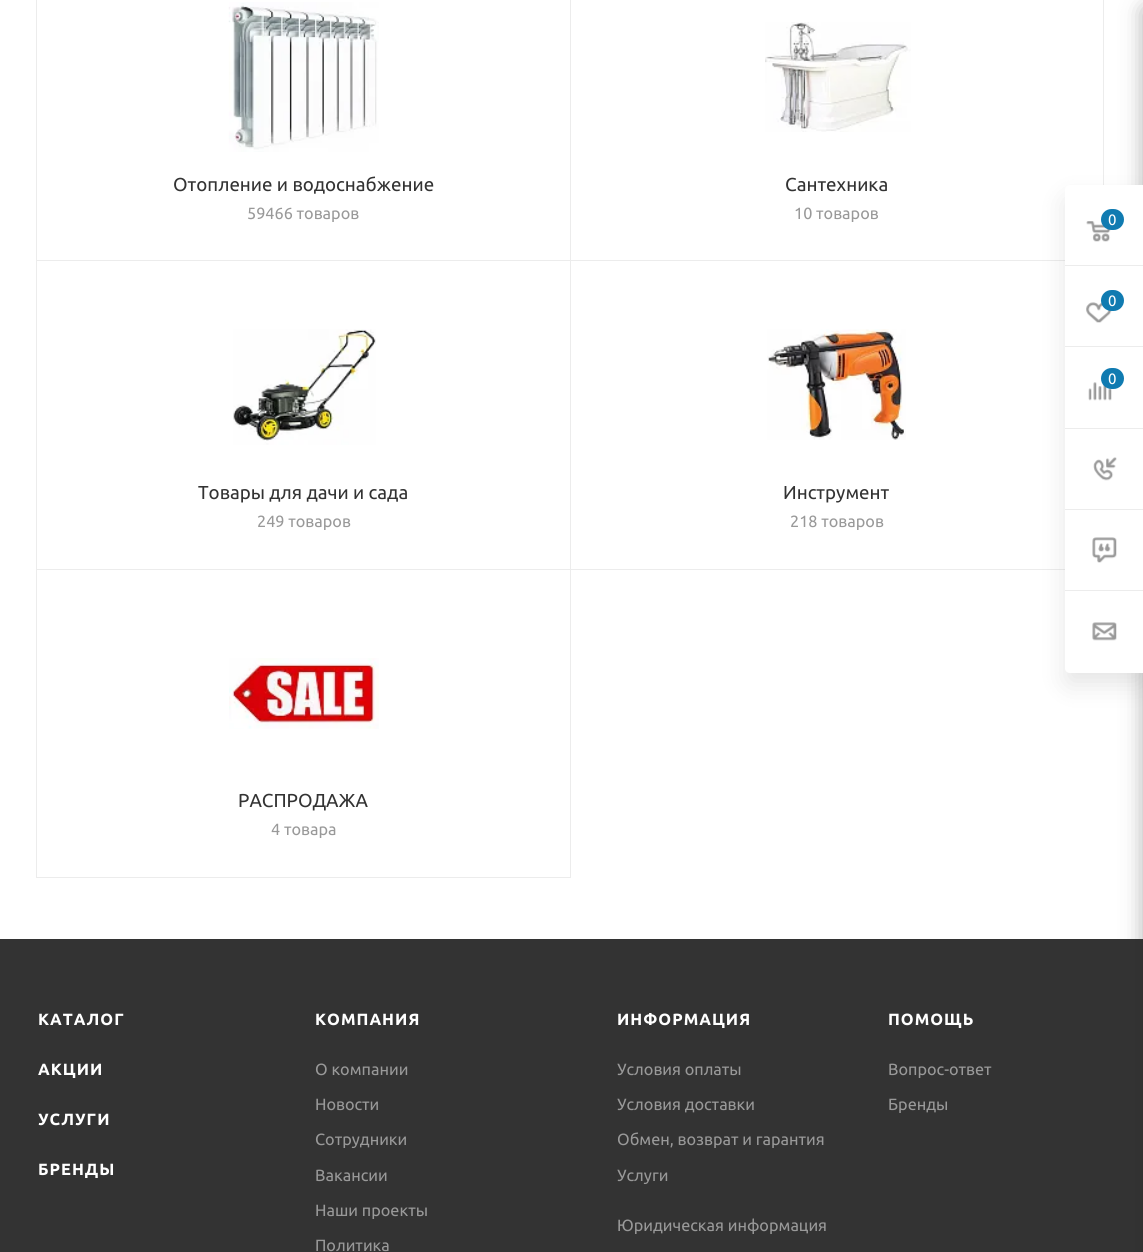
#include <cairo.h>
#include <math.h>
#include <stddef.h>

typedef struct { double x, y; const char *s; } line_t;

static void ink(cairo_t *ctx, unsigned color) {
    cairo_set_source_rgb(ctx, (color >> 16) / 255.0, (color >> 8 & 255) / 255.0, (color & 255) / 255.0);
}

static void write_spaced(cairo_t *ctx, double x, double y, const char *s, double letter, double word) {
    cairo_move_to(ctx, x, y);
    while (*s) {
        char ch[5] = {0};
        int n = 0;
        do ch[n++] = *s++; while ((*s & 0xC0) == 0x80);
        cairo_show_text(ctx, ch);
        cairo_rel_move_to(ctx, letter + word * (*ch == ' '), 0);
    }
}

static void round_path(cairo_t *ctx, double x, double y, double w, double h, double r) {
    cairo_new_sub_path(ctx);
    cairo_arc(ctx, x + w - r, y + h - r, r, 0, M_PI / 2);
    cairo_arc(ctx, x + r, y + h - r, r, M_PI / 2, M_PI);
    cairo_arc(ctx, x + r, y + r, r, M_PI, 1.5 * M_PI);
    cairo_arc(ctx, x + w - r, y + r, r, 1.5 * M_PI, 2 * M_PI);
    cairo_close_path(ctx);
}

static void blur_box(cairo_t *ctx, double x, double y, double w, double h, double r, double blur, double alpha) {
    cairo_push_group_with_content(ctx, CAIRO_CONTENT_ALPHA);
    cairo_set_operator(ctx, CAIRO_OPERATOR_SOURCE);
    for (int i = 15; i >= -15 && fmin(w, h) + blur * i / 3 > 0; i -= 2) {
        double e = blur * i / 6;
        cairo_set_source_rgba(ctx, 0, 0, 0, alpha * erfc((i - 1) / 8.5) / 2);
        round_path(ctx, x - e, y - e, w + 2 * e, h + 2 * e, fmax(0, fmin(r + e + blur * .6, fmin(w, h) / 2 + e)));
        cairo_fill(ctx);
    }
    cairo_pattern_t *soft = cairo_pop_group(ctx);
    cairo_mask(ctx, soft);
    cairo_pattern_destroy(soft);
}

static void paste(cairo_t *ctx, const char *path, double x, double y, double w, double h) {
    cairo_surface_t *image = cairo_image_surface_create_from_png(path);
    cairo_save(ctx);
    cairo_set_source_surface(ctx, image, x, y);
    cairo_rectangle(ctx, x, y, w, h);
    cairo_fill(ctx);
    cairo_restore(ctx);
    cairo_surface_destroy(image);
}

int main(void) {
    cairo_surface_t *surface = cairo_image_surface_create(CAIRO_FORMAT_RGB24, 1143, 1252);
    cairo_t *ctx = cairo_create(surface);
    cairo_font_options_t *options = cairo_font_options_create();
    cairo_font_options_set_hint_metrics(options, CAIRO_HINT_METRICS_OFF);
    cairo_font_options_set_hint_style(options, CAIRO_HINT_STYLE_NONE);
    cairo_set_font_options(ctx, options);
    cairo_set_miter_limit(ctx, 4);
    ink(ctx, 0xFFFFFF);
    cairo_paint(ctx);
    cairo_rectangle(ctx, 36.5, -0.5, 534, 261);
    ink(ctx, 0xECECEC);
    cairo_set_line_width(ctx, 1);
    cairo_stroke(ctx);
    paste(ctx, "media/1.png", 228, 2, 151, 150);
    cairo_select_font_face(ctx, "Ubuntu", CAIRO_FONT_SLANT_NORMAL, CAIRO_FONT_WEIGHT_NORMAL);
    cairo_set_font_size(ctx, 18.75);
    ink(ctx, 0x333333);
    cairo_move_to(ctx, 173, 191);
    cairo_show_text(ctx, "Отопление и водоснабжение");
    cairo_set_font_size(ctx, 16.25);
    ink(ctx, 0x999999);
    cairo_move_to(ctx, 247, 219);
    cairo_show_text(ctx, "59466 товаров");
    cairo_rectangle(ctx, 570.5, -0.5, 533, 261);
    ink(ctx, 0xECECEC);
    cairo_stroke(ctx);
    paste(ctx, "media/2.png", 765, 22, 146, 110);
    cairo_set_font_size(ctx, 18.75);
    ink(ctx, 0x333333);
    cairo_move_to(ctx, 785, 191);
    cairo_show_text(ctx, "Сантехника");
    cairo_set_font_size(ctx, 16.25);
    ink(ctx, 0x999999);
    cairo_move_to(ctx, 794, 219);
    cairo_show_text(ctx, "10 товаров");
    cairo_rectangle(ctx, 36.5, 260.5, 534, 309);
    ink(ctx, 0xECECEC);
    cairo_stroke(ctx);
    paste(ctx, "media/3.png", 233, 329, 143, 116);
    cairo_set_font_size(ctx, 18.75);
    ink(ctx, 0x333333);
    cairo_move_to(ctx, 198, 499);
    cairo_show_text(ctx, "Товары для дачи и сада");
    cairo_set_font_size(ctx, 16.25);
    ink(ctx, 0x999999);
    cairo_move_to(ctx, 257, 527);
    cairo_show_text(ctx, "249 товаров");
    cairo_rectangle(ctx, 570.5, 260.5, 533, 309);
    ink(ctx, 0xECECEC);
    cairo_stroke(ctx);
    paste(ctx, "media/4.png", 767, 329, 139, 111);
    cairo_set_font_size(ctx, 18.75);
    ink(ctx, 0x333333);
    cairo_move_to(ctx, 783, 499);
    cairo_show_text(ctx, "Инструмент");
    cairo_set_font_size(ctx, 16.25);
    ink(ctx, 0x999999);
    cairo_move_to(ctx, 790, 527);
    cairo_show_text(ctx, "218 товаров");
    cairo_rectangle(ctx, 36.5, 569.5, 534, 308);
    ink(ctx, 0xECECEC);
    cairo_stroke(ctx);
    paste(ctx, "media/5.png", 229, 658, 150, 71);
    cairo_set_font_size(ctx, 18.75);
    ink(ctx, 0x333333);
    cairo_move_to(ctx, 238, 807);
    cairo_show_text(ctx, "РАСПРОДАЖА");
    cairo_set_font_size(ctx, 16.25);
    ink(ctx, 0x999999);
    cairo_move_to(ctx, 271, 835);
    cairo_show_text(ctx, "4 товара");
    ink(ctx, 0x333333);
    cairo_rectangle(ctx, 0, 939, 1143, 313);
    cairo_fill(ctx);
    ink(ctx, 0x2C2C2C);
    blur_box(ctx, 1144, 8, 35, 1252, 2.5, 11, 0.4);
    ink(ctx, 0x000000);
    blur_box(ctx, 1065, 198, 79, 487, 5, 12.5, 0.1);
    ink(ctx, 0xFFFFFF);
    cairo_new_path(ctx);
    cairo_move_to(ctx, 1070, 185);
    cairo_line_to(ctx, 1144, 185);
    cairo_line_to(ctx, 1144, 673);
    cairo_line_to(ctx, 1070, 673);
    cairo_curve_to(ctx, 1067, 673, 1065, 671, 1065, 668);
    cairo_line_to(ctx, 1065, 190);
    cairo_curve_to(ctx, 1065, 187, 1067, 185, 1070, 185);
    cairo_close_path(ctx);
    cairo_fill(ctx);
    ink(ctx, 0xECECEC);
    cairo_rectangle(ctx, 1065, 265, 78, 1);
    cairo_fill(ctx);
    paste(ctx, "media/6.png", 1086, 221, 25, 21);
    ink(ctx, 0x107BB1);
    round_path(ctx, 1101, 209, 23, 21, 10.5);
    cairo_fill(ctx);
    cairo_set_font_size(ctx, 15);
    ink(ctx, 0xFFFFFF);
    cairo_move_to(ctx, 1108, 225);
    cairo_show_text(ctx, "0");
    ink(ctx, 0xECECEC);
    cairo_rectangle(ctx, 1065, 346, 78, 1);
    cairo_fill(ctx);
    paste(ctx, "media/7.png", 1086, 302, 26, 21);
    ink(ctx, 0x107BB1);
    round_path(ctx, 1101, 290, 23, 21, 10.5);
    cairo_fill(ctx);
    ink(ctx, 0xFFFFFF);
    cairo_move_to(ctx, 1108, 306);
    cairo_show_text(ctx, "0");
    ink(ctx, 0xECECEC);
    cairo_rectangle(ctx, 1065, 428, 78, 1);
    cairo_fill(ctx);
    paste(ctx, "media/8.png", 1088, 382, 24, 19);
    ink(ctx, 0x107BB1);
    round_path(ctx, 1101, 368, 23, 21, 10.5);
    cairo_fill(ctx);
    ink(ctx, 0xFFFFFF);
    cairo_move_to(ctx, 1108, 384);
    cairo_show_text(ctx, "0");
    ink(ctx, 0xECECEC);
    cairo_rectangle(ctx, 1065, 509, 78, 1);
    cairo_fill(ctx);
    paste(ctx, "media/9.png", 1093, 457, 24, 24);
    cairo_rectangle(ctx, 1065, 590, 78, 1);
    cairo_fill(ctx);
    paste(ctx, "media/10.png", 1092, 537, 25, 26);
    paste(ctx, "media/11.png", 1092, 622, 25, 19);
    cairo_select_font_face(ctx, "Ubuntu", CAIRO_FONT_SLANT_NORMAL, CAIRO_FONT_WEIGHT_BOLD);
    cairo_set_font_size(ctx, 16.25);
    ink(ctx, 0xFFFFFF);
    {
        static const line_t items[] = {
            {38, 1025, "КАТАЛОГ"},
            {38, 1075, "АКЦИИ"},
            {38, 1125, "УСЛУГИ"},
            {38, 1175, "БРЕНДЫ"},
            {315, 1025, "КОМПАНИЯ"},
        };
        for (size_t i = 0; i < sizeof items / sizeof *items; i++) {
            write_spaced(ctx, items[i].x, items[i].y, items[i].s, 1, 0);
        }
    }
    cairo_select_font_face(ctx, "Ubuntu", CAIRO_FONT_SLANT_NORMAL, CAIRO_FONT_WEIGHT_NORMAL);
    ink(ctx, 0x999999);
    {
        static const line_t items[] = {
            {315, 1075, "О компании"},
            {315, 1110, "Новости"},
            {315, 1145, "Сотрудники"},
            {315, 1181, "Вакансии"},
            {315, 1216, "Наши проекты"},
            {315, 1251, "Политика"},
        };
        for (size_t i = 0; i < sizeof items / sizeof *items; i++) {
            cairo_move_to(ctx, items[i].x, items[i].y);
            cairo_show_text(ctx, items[i].s);
        }
    }
    cairo_select_font_face(ctx, "Ubuntu", CAIRO_FONT_SLANT_NORMAL, CAIRO_FONT_WEIGHT_BOLD);
    ink(ctx, 0xFFFFFF);
    write_spaced(ctx, 617, 1025, "ИНФОРМАЦИЯ", 1, 0);
    cairo_select_font_face(ctx, "Ubuntu", CAIRO_FONT_SLANT_NORMAL, CAIRO_FONT_WEIGHT_NORMAL);
    ink(ctx, 0x999999);
    {
        static const line_t items[] = {
            {617, 1075, "Условия оплаты"},
            {617, 1110, "Условия доставки"},
            {617, 1145, "Обмен, возврат и гарантия"},
            {617, 1181, "Услуги"},
            {617, 1231, "Юридическая информация"},
        };
        for (size_t i = 0; i < sizeof items / sizeof *items; i++) {
            cairo_move_to(ctx, items[i].x, items[i].y);
            cairo_show_text(ctx, items[i].s);
        }
    }
    cairo_select_font_face(ctx, "Ubuntu", CAIRO_FONT_SLANT_NORMAL, CAIRO_FONT_WEIGHT_BOLD);
    ink(ctx, 0xFFFFFF);
    write_spaced(ctx, 888, 1025, "ПОМОЩЬ", 1, 0);
    cairo_select_font_face(ctx, "Ubuntu", CAIRO_FONT_SLANT_NORMAL, CAIRO_FONT_WEIGHT_NORMAL);
    ink(ctx, 0x999999);
    cairo_move_to(ctx, 888, 1075);
    cairo_show_text(ctx, "Вопрос-ответ");
    cairo_move_to(ctx, 888, 1110);
    cairo_show_text(ctx, "Бренды");
    cairo_surface_write_to_png(surface, "image.png");
    cairo_font_options_destroy(options);
    cairo_destroy(ctx);
    cairo_surface_destroy(surface);
    return 0;
}
